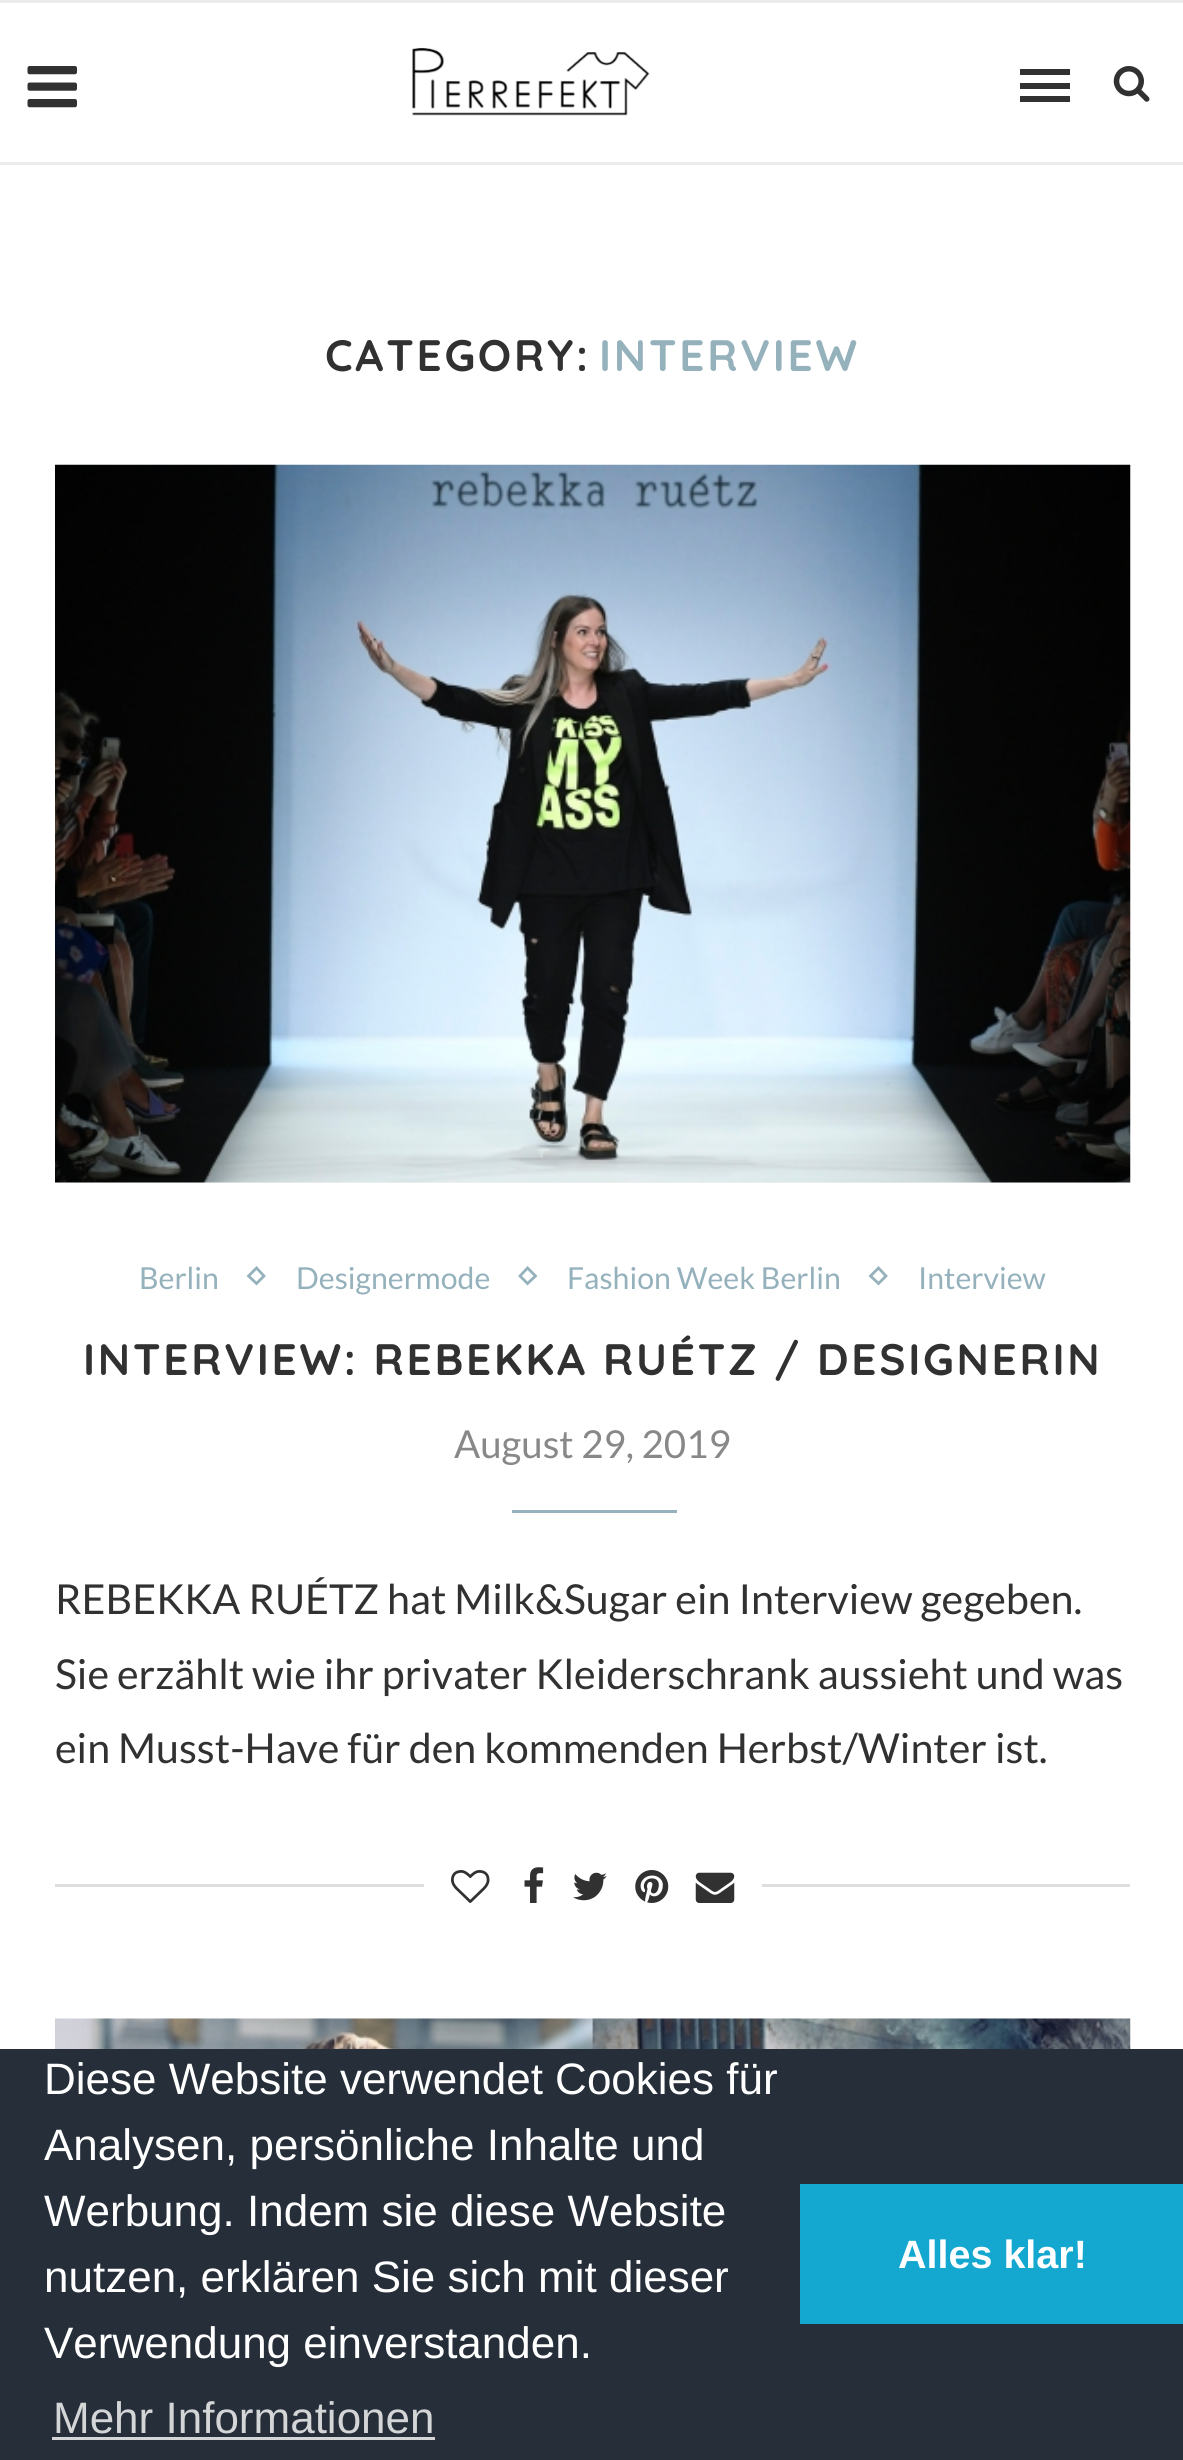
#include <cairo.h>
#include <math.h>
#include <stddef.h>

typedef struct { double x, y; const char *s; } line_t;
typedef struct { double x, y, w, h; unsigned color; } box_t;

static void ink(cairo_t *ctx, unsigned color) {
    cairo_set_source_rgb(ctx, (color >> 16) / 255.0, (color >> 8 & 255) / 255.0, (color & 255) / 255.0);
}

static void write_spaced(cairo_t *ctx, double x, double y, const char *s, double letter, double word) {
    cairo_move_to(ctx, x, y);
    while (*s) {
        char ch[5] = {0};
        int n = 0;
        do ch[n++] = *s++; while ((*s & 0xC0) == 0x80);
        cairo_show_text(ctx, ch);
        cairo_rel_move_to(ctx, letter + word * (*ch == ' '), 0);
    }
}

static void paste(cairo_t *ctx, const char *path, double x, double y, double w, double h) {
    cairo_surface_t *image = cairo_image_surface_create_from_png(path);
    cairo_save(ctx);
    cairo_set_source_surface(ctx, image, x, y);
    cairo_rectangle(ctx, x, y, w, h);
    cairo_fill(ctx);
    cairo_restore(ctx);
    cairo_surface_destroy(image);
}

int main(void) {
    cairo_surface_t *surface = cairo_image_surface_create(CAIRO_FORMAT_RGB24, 1183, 2460);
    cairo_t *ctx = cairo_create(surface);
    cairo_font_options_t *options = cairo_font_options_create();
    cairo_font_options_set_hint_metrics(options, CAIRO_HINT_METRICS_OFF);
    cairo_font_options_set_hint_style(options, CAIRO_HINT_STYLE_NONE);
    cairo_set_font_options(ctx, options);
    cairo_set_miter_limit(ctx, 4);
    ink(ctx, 0xFFFFFF);
    cairo_paint(ctx);
    ink(ctx, 0xECECEC);
    cairo_rectangle(ctx, 0, 0, 1183, 3);
    cairo_fill(ctx);
    cairo_rectangle(ctx, 0, 162, 1183, 3);
    cairo_fill(ctx);
    paste(ctx, "media/1.png", 27, 66, 50, 42);
    paste(ctx, "media/2.png", 412, 47, 238, 69);
    {
        static const box_t items[] = {
            {1020, 69, 50, 6, 0x313131},
            {1020, 96, 50, 6, 0x313131},
            {1020, 83, 50, 6, 0x313131},
        };
        for (size_t i = 0; i < sizeof items / sizeof *items; i++) {
            ink(ctx, items[i].color);
            cairo_rectangle(ctx, items[i].x, items[i].y, items[i].w, items[i].h);
            cairo_fill(ctx);
        }
    }
    paste(ctx, "media/3.png", 1113, 66, 37, 36);
    cairo_select_font_face(ctx, "Quicksand", CAIRO_FONT_SLANT_NORMAL, CAIRO_FONT_WEIGHT_BOLD);
    cairo_set_font_size(ctx, 44);
    write_spaced(ctx, 325, 371, "CATEGORY:", 2.75, 0);
    ink(ctx, 0x94B1BC);
    write_spaced(ctx, 599, 371, "INTERVIEW", 2.75, 0);
    ink(ctx, 0xF5F5F5);
    cairo_rectangle(ctx, 55, 1182, 1075, 1);
    cairo_fill(ctx);
    paste(ctx, "media/4.png", 55, 464, 1076, 719);
    cairo_select_font_face(ctx, "Lato", CAIRO_FONT_SLANT_NORMAL, CAIRO_FONT_WEIGHT_NORMAL);
    cairo_set_font_size(ctx, 30.25);
    ink(ctx, 0x94B1BC);
    cairo_move_to(ctx, 139, 1289);
    cairo_show_text(ctx, "Berlin");
    cairo_new_path(ctx);
    cairo_move_to(ctx, 256.5, 1268);
    cairo_line_to(ctx, 264, 1276);
    cairo_line_to(ctx, 256.5, 1283.5);
    cairo_line_to(ctx, 248.5, 1276);
    cairo_close_path(ctx);
    cairo_set_line_width(ctx, 2.8);
    cairo_stroke(ctx);
    cairo_move_to(ctx, 296, 1289);
    cairo_show_text(ctx, "Designermode");
    cairo_new_path(ctx);
    cairo_move_to(ctx, 527.5, 1268);
    cairo_line_to(ctx, 535.5, 1276);
    cairo_line_to(ctx, 527.5, 1283.5);
    cairo_line_to(ctx, 520, 1276);
    cairo_close_path(ctx);
    cairo_stroke(ctx);
    cairo_move_to(ctx, 567, 1289);
    cairo_show_text(ctx, "Fashion Week Berlin");
    cairo_new_path(ctx);
    cairo_move_to(ctx, 878.5, 1268);
    cairo_line_to(ctx, 886, 1276);
    cairo_line_to(ctx, 878.5, 1283.5);
    cairo_line_to(ctx, 870.5, 1276);
    cairo_close_path(ctx);
    cairo_stroke(ctx);
    cairo_move_to(ctx, 918, 1289);
    cairo_show_text(ctx, "Interview");
    cairo_select_font_face(ctx, "Quicksand", CAIRO_FONT_SLANT_NORMAL, CAIRO_FONT_WEIGHT_BOLD);
    cairo_set_font_size(ctx, 44);
    ink(ctx, 0x313131);
    write_spaced(ctx, 83, 1375, "INTERVIEW: REBEKKA RUÉTZ / DESIGNERIN", 2.75, 0);
    cairo_select_font_face(ctx, "Lato", CAIRO_FONT_SLANT_NORMAL, CAIRO_FONT_WEIGHT_NORMAL);
    cairo_set_font_size(ctx, 38.5);
    ink(ctx, 0x888888);
    cairo_move_to(ctx, 454, 1458);
    cairo_show_text(ctx, "August 29, 2019");
    ink(ctx, 0x94B1BC);
    cairo_rectangle(ctx, 512, 1510, 165, 3);
    cairo_fill(ctx);
    cairo_set_font_size(ctx, 41.25);
    ink(ctx, 0x313131);
    {
        static const line_t items[] = {
            {55, 1614, "REBEKKA RUÉTZ hat Milk&Sugar ein Interview gegeben."},
            {55, 1689, "Sie erzählt wie ihr privater Kleiderschrank aussieht und was"},
            {55, 1763, "ein Musst-Have für den kommenden Herbst/Winter ist."},
        };
        for (size_t i = 0; i < sizeof items / sizeof *items; i++) {
            cairo_move_to(ctx, items[i].x, items[i].y);
            cairo_show_text(ctx, items[i].s);
        }
    }
    ink(ctx, 0xDEDEDE);
    cairo_rectangle(ctx, 55, 1884, 1075, 3);
    cairo_fill(ctx);
    ink(ctx, 0xFFFFFF);
    cairo_rectangle(ctx, 424, 1884, 338, 3);
    cairo_fill(ctx);
    paste(ctx, "media/5.png", 451, 1870, 39, 33);
    paste(ctx, "media/6.png", 524, 1867, 20, 36);
    paste(ctx, "media/7.png", 573, 1872, 34, 29);
    paste(ctx, "media/8.png", 635, 1870, 34, 33);
    paste(ctx, "media/9.png", 695, 1872, 40, 31);
    paste(ctx, "media/10.png", 55, 2018, 1076, 31);
    ink(ctx, 0x252E39);
    cairo_rectangle(ctx, 0, 2049, 1183, 411);
    cairo_fill(ctx);
    cairo_select_font_face(ctx, "Liberation Sans", CAIRO_FONT_SLANT_NORMAL, CAIRO_FONT_WEIGHT_NORMAL);
    cairo_set_font_size(ctx, 44);
    ink(ctx, 0xFFFFFF);
    {
        static const line_t items[] = {
            {44, 2094, "Diese Website verwendet Cookies für"},
            {44, 2160, "Analysen, persönliche Inhalte und"},
            {44, 2226, "Werbung. Indem sie diese Website"},
            {44, 2292, "nutzen, erklären Sie sich mit dieser"},
            {44, 2358, "Verwendung einverstanden."},
        };
        for (size_t i = 0; i < sizeof items / sizeof *items; i++) {
            cairo_move_to(ctx, items[i].x, items[i].y);
            cairo_show_text(ctx, items[i].s);
        }
    }
    ink(ctx, 0xD3D5D7);
    cairo_move_to(ctx, 53, 2433);
    cairo_show_text(ctx, "Mehr Informationen");
    cairo_rectangle(ctx, 52, 2437, 383, 3);
    cairo_fill(ctx);
    ink(ctx, 0x14A7D0);
    cairo_rectangle(ctx, 800, 2184, 383, 140);
    cairo_fill(ctx);
    cairo_select_font_face(ctx, "Liberation Sans", CAIRO_FONT_SLANT_NORMAL, CAIRO_FONT_WEIGHT_BOLD);
    cairo_set_font_size(ctx, 39.5);
    ink(ctx, 0xFFFFFF);
    cairo_move_to(ctx, 898, 2268);
    cairo_show_text(ctx, "Alles klar!");
    cairo_surface_write_to_png(surface, "image.png");
    cairo_font_options_destroy(options);
    cairo_destroy(ctx);
    cairo_surface_destroy(surface);
    return 0;
}
